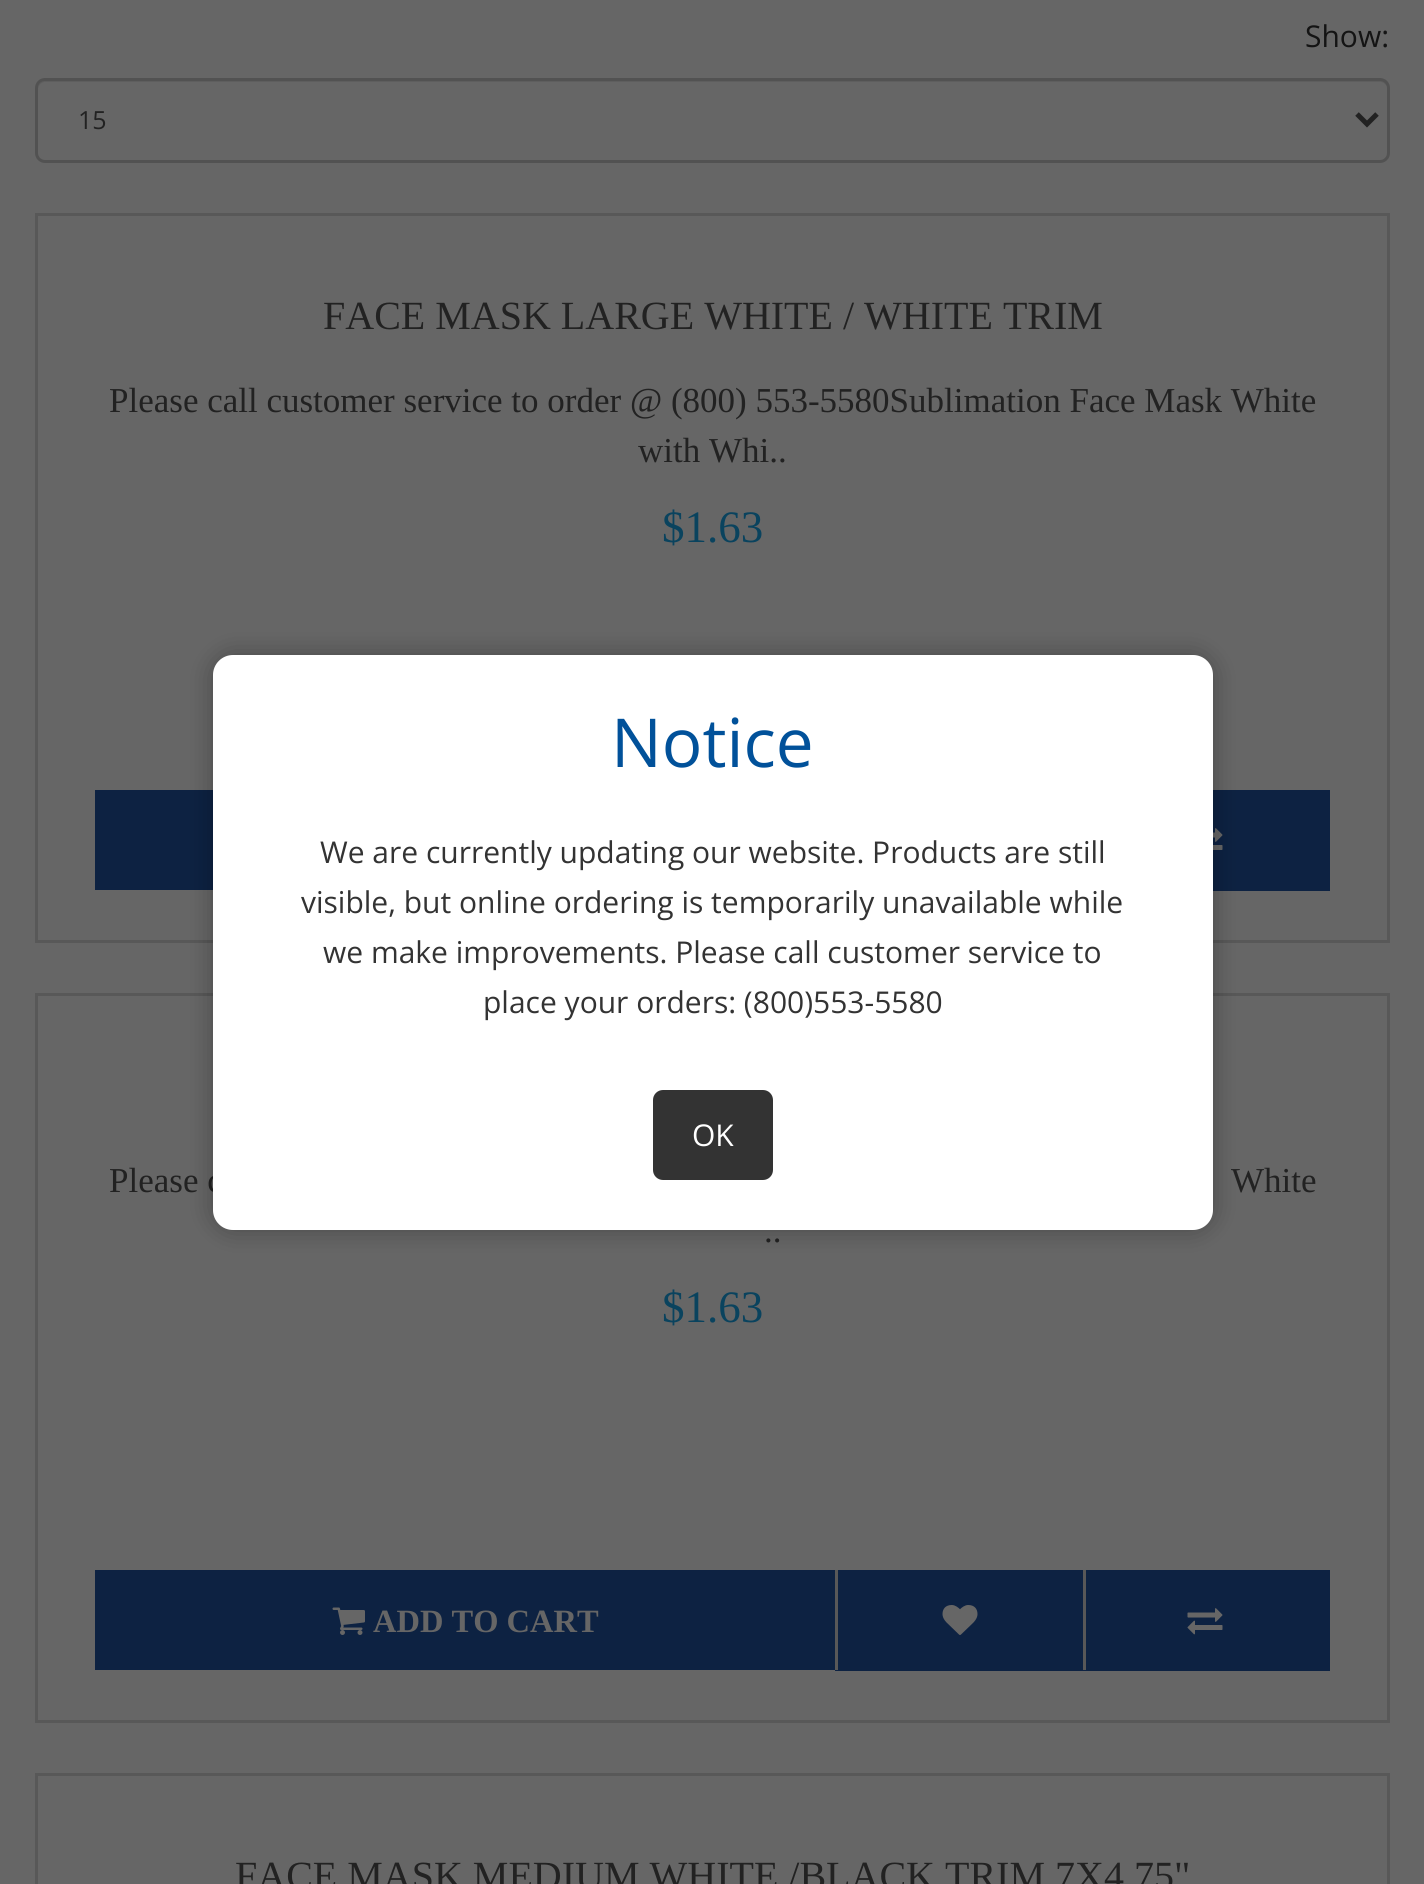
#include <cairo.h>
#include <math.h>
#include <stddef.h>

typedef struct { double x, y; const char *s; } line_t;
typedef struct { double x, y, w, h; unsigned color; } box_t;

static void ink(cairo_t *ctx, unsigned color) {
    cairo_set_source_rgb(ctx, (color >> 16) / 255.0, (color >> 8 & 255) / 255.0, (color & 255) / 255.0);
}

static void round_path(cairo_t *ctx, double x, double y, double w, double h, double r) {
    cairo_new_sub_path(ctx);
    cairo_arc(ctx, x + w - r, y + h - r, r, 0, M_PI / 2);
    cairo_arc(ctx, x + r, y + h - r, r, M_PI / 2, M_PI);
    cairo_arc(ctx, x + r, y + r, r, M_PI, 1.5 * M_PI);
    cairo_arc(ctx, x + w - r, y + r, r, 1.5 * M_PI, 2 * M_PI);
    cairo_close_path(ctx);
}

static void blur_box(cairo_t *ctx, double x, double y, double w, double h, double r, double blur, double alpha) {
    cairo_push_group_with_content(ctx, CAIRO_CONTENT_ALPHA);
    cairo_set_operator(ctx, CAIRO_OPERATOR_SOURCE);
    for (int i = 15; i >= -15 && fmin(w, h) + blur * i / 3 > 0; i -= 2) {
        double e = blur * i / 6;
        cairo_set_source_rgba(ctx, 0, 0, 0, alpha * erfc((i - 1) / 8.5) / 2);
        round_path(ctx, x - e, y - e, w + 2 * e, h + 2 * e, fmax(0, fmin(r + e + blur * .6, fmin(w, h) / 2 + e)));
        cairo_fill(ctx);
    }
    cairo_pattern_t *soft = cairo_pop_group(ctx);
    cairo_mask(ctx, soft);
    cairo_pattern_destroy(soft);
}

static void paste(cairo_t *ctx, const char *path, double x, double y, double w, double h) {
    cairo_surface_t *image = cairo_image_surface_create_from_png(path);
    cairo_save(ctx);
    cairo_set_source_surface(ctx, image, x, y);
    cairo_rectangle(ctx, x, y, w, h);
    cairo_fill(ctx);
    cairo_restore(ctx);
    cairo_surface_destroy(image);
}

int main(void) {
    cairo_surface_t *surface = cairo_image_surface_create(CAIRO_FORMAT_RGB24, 1424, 1884);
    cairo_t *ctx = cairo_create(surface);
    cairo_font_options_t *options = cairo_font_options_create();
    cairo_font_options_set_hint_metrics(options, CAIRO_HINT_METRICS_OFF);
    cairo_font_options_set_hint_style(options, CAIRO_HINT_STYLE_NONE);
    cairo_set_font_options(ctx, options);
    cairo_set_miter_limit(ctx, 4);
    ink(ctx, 0x666666);
    cairo_paint(ctx);
    cairo_select_font_face(ctx, "Open Sans", CAIRO_FONT_SLANT_NORMAL, CAIRO_FONT_WEIGHT_NORMAL);
    cairo_set_font_size(ctx, 30);
    ink(ctx, 0x141414);
    cairo_move_to(ctx, 1305, 47);
    cairo_show_text(ctx, "Show:");
    ink(ctx, 0x5E5E5E);
    cairo_new_path(ctx);
    cairo_move_to(ctx, 45, 82);
    cairo_line_to(ctx, 1380, 82);
    cairo_curve_to(ctx, 1384, 82, 1388, 86, 1388, 90);
    cairo_line_to(ctx, 1388, 88);
    cairo_curve_to(ctx, 1388, 84, 1384, 80, 1380, 80);
    cairo_line_to(ctx, 46, 80);
    cairo_curve_to(ctx, 42, 80, 38, 84, 38, 88);
    cairo_line_to(ctx, 38, 90);
    cairo_curve_to(ctx, 38, 86, 41, 82, 45, 82);
    cairo_close_path(ctx);
    cairo_fill(ctx);
    round_path(ctx, 36.5, 79.5, 1352, 82, 8.5);
    ink(ctx, 0x525252);
    cairo_set_line_width(ctx, 3);
    cairo_stroke(ctx);
    cairo_new_path(ctx);
    cairo_move_to(ctx, 1357, 114);
    cairo_line_to(ctx, 1367, 124);
    cairo_line_to(ctx, 1377, 114);
    ink(ctx, 0x222222);
    cairo_set_line_width(ctx, 5);
    cairo_stroke(ctx);
    cairo_set_font_size(ctx, 25);
    cairo_move_to(ctx, 78, 129);
    cairo_show_text(ctx, "15");
    cairo_rectangle(ctx, 36.5, 214.5, 1352, 727);
    ink(ctx, 0x585858);
    cairo_set_line_width(ctx, 3);
    cairo_stroke(ctx);
    cairo_select_font_face(ctx, "Liberation Serif", CAIRO_FONT_SLANT_NORMAL, CAIRO_FONT_WEIGHT_NORMAL);
    cairo_set_font_size(ctx, 40);
    ink(ctx, 0x222222);
    cairo_move_to(ctx, 323, 329);
    cairo_show_text(ctx, "FACE MASK LARGE WHITE / WHITE TRIM");
    cairo_set_font_size(ctx, 35);
    cairo_move_to(ctx, 109, 412);
    cairo_show_text(ctx, "Please call customer service to order @ (800) 553-5580Sublimation Face Mask White");
    cairo_move_to(ctx, 638, 462);
    cairo_show_text(ctx, "with Whi..");
    cairo_set_font_size(ctx, 45);
    ink(ctx, 0x0A435E);
    cairo_move_to(ctx, 662, 542);
    cairo_show_text(ctx, "$1.63");
    ink(ctx, 0x0D2242);
    cairo_rectangle(ctx, 95, 790, 118, 100);
    cairo_fill(ctx);
    cairo_rectangle(ctx, 1213, 790, 117, 101);
    cairo_fill(ctx);
    paste(ctx, "media/1.png", 1213, 828, 10, 22);
    cairo_rectangle(ctx, 36.5, 994.5, 1352, 727);
    ink(ctx, 0x585858);
    cairo_stroke(ctx);
    cairo_set_font_size(ctx, 35);
    ink(ctx, 0x222222);
    {
        static const line_t items[] = {
            {109, 1192, "Please c"},
            {1231, 1192, "White"},
            {764, 1242, ".."},
        };
        for (size_t i = 0; i < sizeof items / sizeof *items; i++) {
            cairo_move_to(ctx, items[i].x, items[i].y);
            cairo_show_text(ctx, items[i].s);
        }
    }
    cairo_set_font_size(ctx, 45);
    ink(ctx, 0x0A435E);
    cairo_move_to(ctx, 662, 1322);
    cairo_show_text(ctx, "$1.63");
    {
        static const box_t items[] = {
            {838, 1570, 245, 98, 0x0D2242},
            {835, 1668, 495, 3, 0x0D2242},
            {835, 1570, 3, 100, 0x585858},
        };
        for (size_t i = 0; i < sizeof items / sizeof *items; i++) {
            ink(ctx, items[i].color);
            cairo_rectangle(ctx, items[i].x, items[i].y, items[i].w, items[i].h);
            cairo_fill(ctx);
        }
    }
    paste(ctx, "media/2.png", 942, 1605, 36, 30);
    ink(ctx, 0x0D2242);
    cairo_rectangle(ctx, 95, 1570, 740, 100);
    cairo_fill(ctx);
    paste(ctx, "media/3.png", 332, 1607, 33, 28);
    cairo_select_font_face(ctx, "Liberation Serif", CAIRO_FONT_SLANT_NORMAL, CAIRO_FONT_WEIGHT_BOLD);
    cairo_set_font_size(ctx, 32.5);
    ink(ctx, 0x666666);
    cairo_move_to(ctx, 373, 1632);
    cairo_show_text(ctx, "ADD TO CART");
    ink(ctx, 0x0D2242);
    cairo_rectangle(ctx, 1086, 1570, 244, 98);
    cairo_fill(ctx);
    ink(ctx, 0x585858);
    cairo_rectangle(ctx, 1083, 1570, 3, 100);
    cairo_fill(ctx);
    paste(ctx, "media/4.png", 1187, 1608, 36, 27);
    cairo_rectangle(ctx, 36.5, 1774.5, 1352, 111);
    cairo_stroke(ctx);
    cairo_select_font_face(ctx, "Liberation Serif", CAIRO_FONT_SLANT_NORMAL, CAIRO_FONT_WEIGHT_NORMAL);
    cairo_set_font_size(ctx, 40);
    ink(ctx, 0x222222);
    cairo_move_to(ctx, 235, 1889);
    cairo_show_text(ctx, "FACE MASK MEDIUM WHITE /BLACK TRIM 7X4.75\"");
    ink(ctx, 0x000000);
    blur_box(ctx, 213, 655, 1000, 575, 20, 12.5, 0.3);
    ink(ctx, 0xFFFFFF);
    round_path(ctx, 213, 655, 1000, 575, 20);
    cairo_fill(ctx);
    cairo_select_font_face(ctx, "Open Sans", CAIRO_FONT_SLANT_NORMAL, CAIRO_FONT_WEIGHT_NORMAL);
    cairo_set_font_size(ctx, 67.5);
    ink(ctx, 0x01519A);
    cairo_move_to(ctx, 611, 767);
    cairo_show_text(ctx, "Notice");
    cairo_set_font_size(ctx, 30);
    ink(ctx, 0x333333);
    {
        static const line_t items[] = {
            {320, 863, "We are currently updating our website. Products are still"},
            {301, 913, "visible, but online ordering is temporarily unavailable while"},
            {323, 963, "we make improvements. Please call customer service to"},
            {483, 1013, "place your orders: (800)553-5580"},
        };
        for (size_t i = 0; i < sizeof items / sizeof *items; i++) {
            cairo_move_to(ctx, items[i].x, items[i].y);
            cairo_show_text(ctx, items[i].s);
        }
    }
    round_path(ctx, 653, 1090, 120, 90, 10);
    cairo_fill(ctx);
    ink(ctx, 0xFFFFFF);
    cairo_move_to(ctx, 692, 1146);
    cairo_show_text(ctx, "OK");
    cairo_surface_write_to_png(surface, "image.png");
    cairo_font_options_destroy(options);
    cairo_destroy(ctx);
    cairo_surface_destroy(surface);
    return 0;
}
